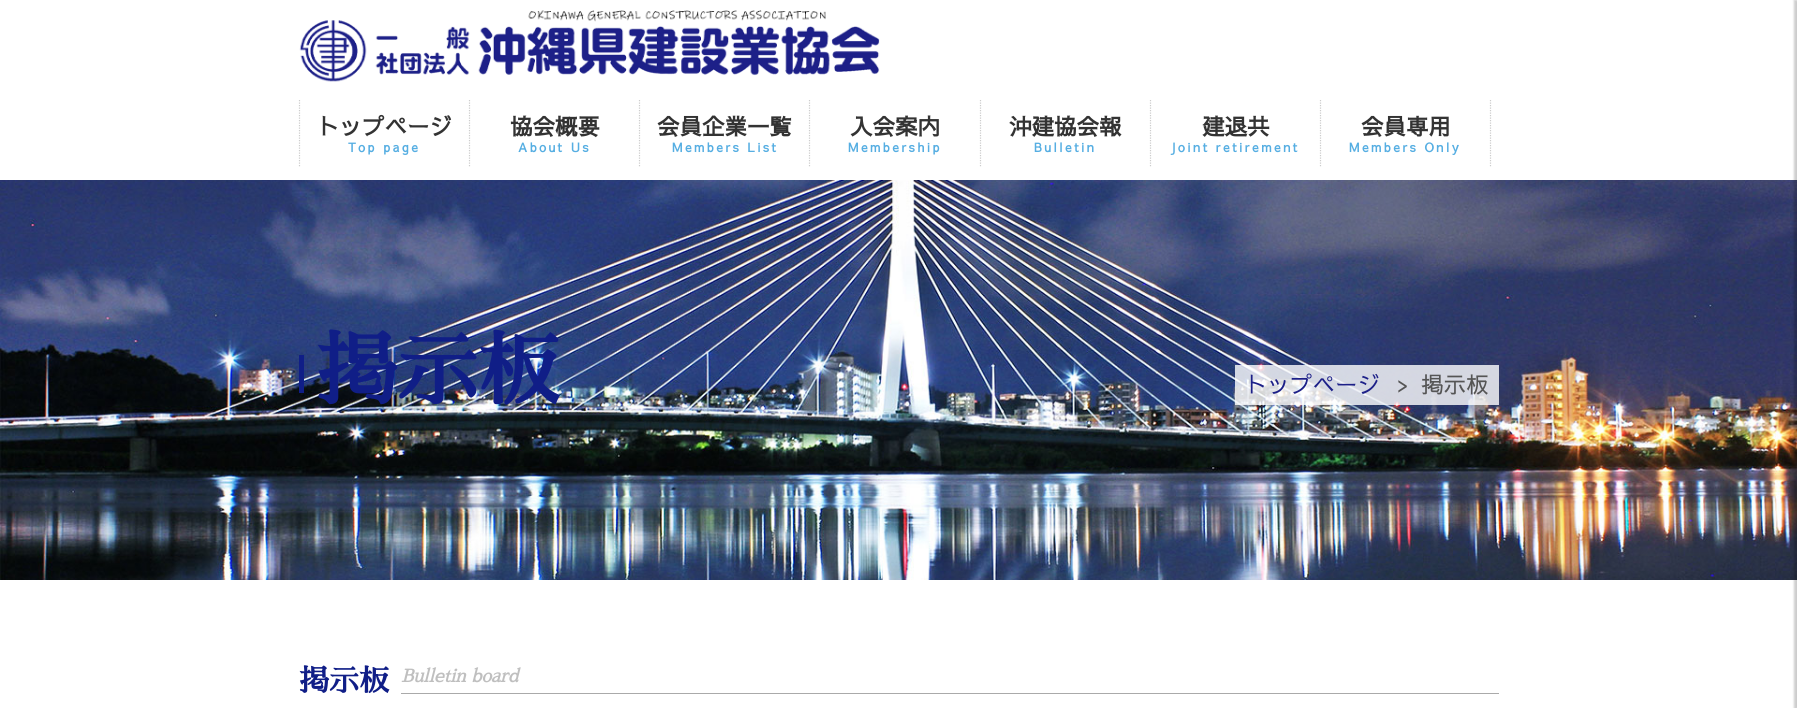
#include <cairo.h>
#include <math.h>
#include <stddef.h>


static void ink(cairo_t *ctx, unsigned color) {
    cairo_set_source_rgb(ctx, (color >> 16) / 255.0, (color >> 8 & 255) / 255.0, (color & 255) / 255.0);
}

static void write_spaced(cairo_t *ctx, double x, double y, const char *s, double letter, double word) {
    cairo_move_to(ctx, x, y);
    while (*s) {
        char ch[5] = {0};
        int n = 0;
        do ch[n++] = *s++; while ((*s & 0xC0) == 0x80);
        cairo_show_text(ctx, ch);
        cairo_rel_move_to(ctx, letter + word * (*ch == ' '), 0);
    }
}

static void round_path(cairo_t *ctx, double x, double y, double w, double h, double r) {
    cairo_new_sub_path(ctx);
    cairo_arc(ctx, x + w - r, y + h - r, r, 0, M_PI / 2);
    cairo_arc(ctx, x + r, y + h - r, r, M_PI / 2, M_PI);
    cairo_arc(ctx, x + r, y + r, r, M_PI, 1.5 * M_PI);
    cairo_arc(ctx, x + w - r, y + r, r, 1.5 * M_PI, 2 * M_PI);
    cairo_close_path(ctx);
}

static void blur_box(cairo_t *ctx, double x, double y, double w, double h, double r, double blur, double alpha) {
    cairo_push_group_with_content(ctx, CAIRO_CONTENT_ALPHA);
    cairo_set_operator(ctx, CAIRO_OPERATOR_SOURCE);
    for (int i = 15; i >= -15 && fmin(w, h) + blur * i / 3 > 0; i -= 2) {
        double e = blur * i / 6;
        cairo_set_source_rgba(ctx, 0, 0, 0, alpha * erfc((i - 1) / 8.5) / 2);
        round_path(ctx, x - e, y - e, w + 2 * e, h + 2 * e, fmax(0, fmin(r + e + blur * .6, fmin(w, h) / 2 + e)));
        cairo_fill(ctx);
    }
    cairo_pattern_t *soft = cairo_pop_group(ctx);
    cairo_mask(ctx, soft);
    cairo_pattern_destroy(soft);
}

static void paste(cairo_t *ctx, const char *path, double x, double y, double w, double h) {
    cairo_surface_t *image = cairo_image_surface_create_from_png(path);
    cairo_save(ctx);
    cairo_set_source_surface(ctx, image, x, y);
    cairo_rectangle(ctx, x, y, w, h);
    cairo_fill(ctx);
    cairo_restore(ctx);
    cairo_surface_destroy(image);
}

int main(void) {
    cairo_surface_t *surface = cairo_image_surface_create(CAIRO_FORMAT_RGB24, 1797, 708);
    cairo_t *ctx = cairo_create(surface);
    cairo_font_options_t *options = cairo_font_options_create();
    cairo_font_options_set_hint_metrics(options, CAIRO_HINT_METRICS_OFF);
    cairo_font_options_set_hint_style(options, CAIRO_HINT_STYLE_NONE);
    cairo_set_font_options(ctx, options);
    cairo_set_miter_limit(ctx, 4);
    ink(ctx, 0xFFFFFF);
    cairo_paint(ctx);
    paste(ctx, "media/1.png", 299, 10, 581, 72);
    cairo_new_path(ctx);
    cairo_move_to(ctx, 299.5, 100);
    cairo_line_to(ctx, 299.5, 167.5);
    ink(ctx, 0xCCCCCC);
    cairo_set_line_width(ctx, 1.2);
    cairo_set_dash(ctx, (double[]){1.25, 1.25}, 2, 0);
    cairo_stroke(ctx);
    cairo_select_font_face(ctx, "Sawarabi Gothic", CAIRO_FONT_SLANT_NORMAL, CAIRO_FONT_WEIGHT_BOLD);
    cairo_set_font_size(ctx, 22.5);
    ink(ctx, 0x333333);
    cairo_move_to(ctx, 317, 135);
    cairo_show_text(ctx, "トップページ");
    cairo_set_font_size(ctx, 12.5);
    ink(ctx, 0x56AEE2);
    write_spaced(ctx, 348, 152, "Top page", 2.5, 0);
    cairo_new_path(ctx);
    cairo_move_to(ctx, 469.5, 100);
    cairo_line_to(ctx, 469.5, 167.5);
    ink(ctx, 0xCCCCCC);
    cairo_stroke(ctx);
    cairo_set_font_size(ctx, 22.5);
    ink(ctx, 0x333333);
    cairo_move_to(ctx, 510, 135);
    cairo_show_text(ctx, "協会概要");
    cairo_set_font_size(ctx, 12.5);
    ink(ctx, 0x56AEE2);
    write_spaced(ctx, 518, 152, "About Us", 2.5, 0);
    cairo_new_path(ctx);
    cairo_move_to(ctx, 639.5, 100);
    cairo_line_to(ctx, 639.5, 167.5);
    ink(ctx, 0xCCCCCC);
    cairo_stroke(ctx);
    cairo_set_font_size(ctx, 22.5);
    ink(ctx, 0x333333);
    cairo_move_to(ctx, 657, 135);
    cairo_show_text(ctx, "会員企業一覧");
    cairo_set_font_size(ctx, 12.5);
    ink(ctx, 0x56AEE2);
    write_spaced(ctx, 672, 152, "Members List", 2.5, 0);
    cairo_new_path(ctx);
    cairo_move_to(ctx, 809.5, 100);
    cairo_line_to(ctx, 809.5, 167.5);
    ink(ctx, 0xCCCCCC);
    cairo_stroke(ctx);
    cairo_set_font_size(ctx, 22.5);
    ink(ctx, 0x333333);
    cairo_move_to(ctx, 850, 135);
    cairo_show_text(ctx, "入会案内");
    cairo_set_font_size(ctx, 12.5);
    ink(ctx, 0x56AEE2);
    write_spaced(ctx, 848, 152, "Membership", 2.5, 0);
    cairo_new_path(ctx);
    cairo_move_to(ctx, 980.5, 100);
    cairo_line_to(ctx, 980.5, 167.5);
    ink(ctx, 0xCCCCCC);
    cairo_stroke(ctx);
    cairo_set_font_size(ctx, 22.5);
    ink(ctx, 0x333333);
    cairo_move_to(ctx, 1009, 135);
    cairo_show_text(ctx, "沖建協会報");
    cairo_set_font_size(ctx, 12.5);
    ink(ctx, 0x56AEE2);
    write_spaced(ctx, 1034, 152, "Bulletin", 2.5, 0);
    cairo_new_path(ctx);
    cairo_move_to(ctx, 1150.5, 100);
    cairo_line_to(ctx, 1150.5, 167.5);
    ink(ctx, 0xCCCCCC);
    cairo_stroke(ctx);
    cairo_set_font_size(ctx, 22.5);
    ink(ctx, 0x333333);
    cairo_move_to(ctx, 1202, 135);
    cairo_show_text(ctx, "建退共");
    cairo_set_font_size(ctx, 12.5);
    ink(ctx, 0x56AEE2);
    write_spaced(ctx, 1170, 152, "Joint retirement", 2.5, 0);
    cairo_new_path(ctx);
    cairo_move_to(ctx, 1490.5, 100);
    cairo_line_to(ctx, 1490.5, 167.5);
    ink(ctx, 0xCCCCCC);
    cairo_stroke(ctx);
    cairo_new_path(ctx);
    cairo_move_to(ctx, 1320.5, 100);
    cairo_line_to(ctx, 1320.5, 167.5);
    cairo_stroke(ctx);
    cairo_set_font_size(ctx, 22.5);
    ink(ctx, 0x333333);
    cairo_move_to(ctx, 1361, 135);
    cairo_show_text(ctx, "会員専用");
    cairo_set_font_size(ctx, 12.5);
    ink(ctx, 0x56AEE2);
    write_spaced(ctx, 1349, 152, "Members Only", 2.5, 0);
    paste(ctx, "media/2.png", 0, 180, 1797, 400);
    ink(ctx, 0x101E87);
    cairo_rectangle(ctx, 299, 355, 5, 38);
    cairo_fill(ctx);
    cairo_select_font_face(ctx, "Sawarabi Mincho", CAIRO_FONT_SLANT_NORMAL, CAIRO_FONT_WEIGHT_BOLD);
    cairo_set_font_size(ctx, 81);
    cairo_move_to(ctx, 316, 399);
    cairo_show_text(ctx, "掲示板");
    cairo_set_source_rgba(ctx, 1, 1, 1, 0.8);
    cairo_rectangle(ctx, 1235, 365, 264, 40);
    cairo_fill(ctx);
    cairo_select_font_face(ctx, "Sawarabi Gothic", CAIRO_FONT_SLANT_NORMAL, CAIRO_FONT_WEIGHT_NORMAL);
    cairo_set_font_size(ctx, 22.5);
    ink(ctx, 0x1D2088);
    cairo_move_to(ctx, 1245, 393);
    cairo_show_text(ctx, "トップページ");
    ink(ctx, 0x555555);
    cairo_move_to(ctx, 1397, 393);
    cairo_show_text(ctx, ">");
    cairo_move_to(ctx, 1421, 393);
    cairo_show_text(ctx, "掲示板");
    cairo_select_font_face(ctx, "Sawarabi Mincho", CAIRO_FONT_SLANT_NORMAL, CAIRO_FONT_WEIGHT_BOLD);
    cairo_set_font_size(ctx, 30);
    ink(ctx, 0x101E87);
    cairo_move_to(ctx, 299, 691);
    cairo_show_text(ctx, "掲示板");
    ink(ctx, 0xAAAAAA);
    cairo_rectangle(ctx, 401, 693, 1098, 1);
    cairo_fill(ctx);
    cairo_select_font_face(ctx, "Sawarabi Mincho", CAIRO_FONT_SLANT_ITALIC, CAIRO_FONT_WEIGHT_BOLD);
    cairo_set_font_size(ctx, 17.5);
    ink(ctx, 0xBFBFBF);
    cairo_move_to(ctx, 401, 682);
    cairo_show_text(ctx, "Bulletin board");
    ink(ctx, 0x000000);
    blur_box(ctx, 1794, 0, 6, 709, 0, 1, 0.2);
    cairo_surface_write_to_png(surface, "image.png");
    cairo_font_options_destroy(options);
    cairo_destroy(ctx);
    cairo_surface_destroy(surface);
    return 0;
}
